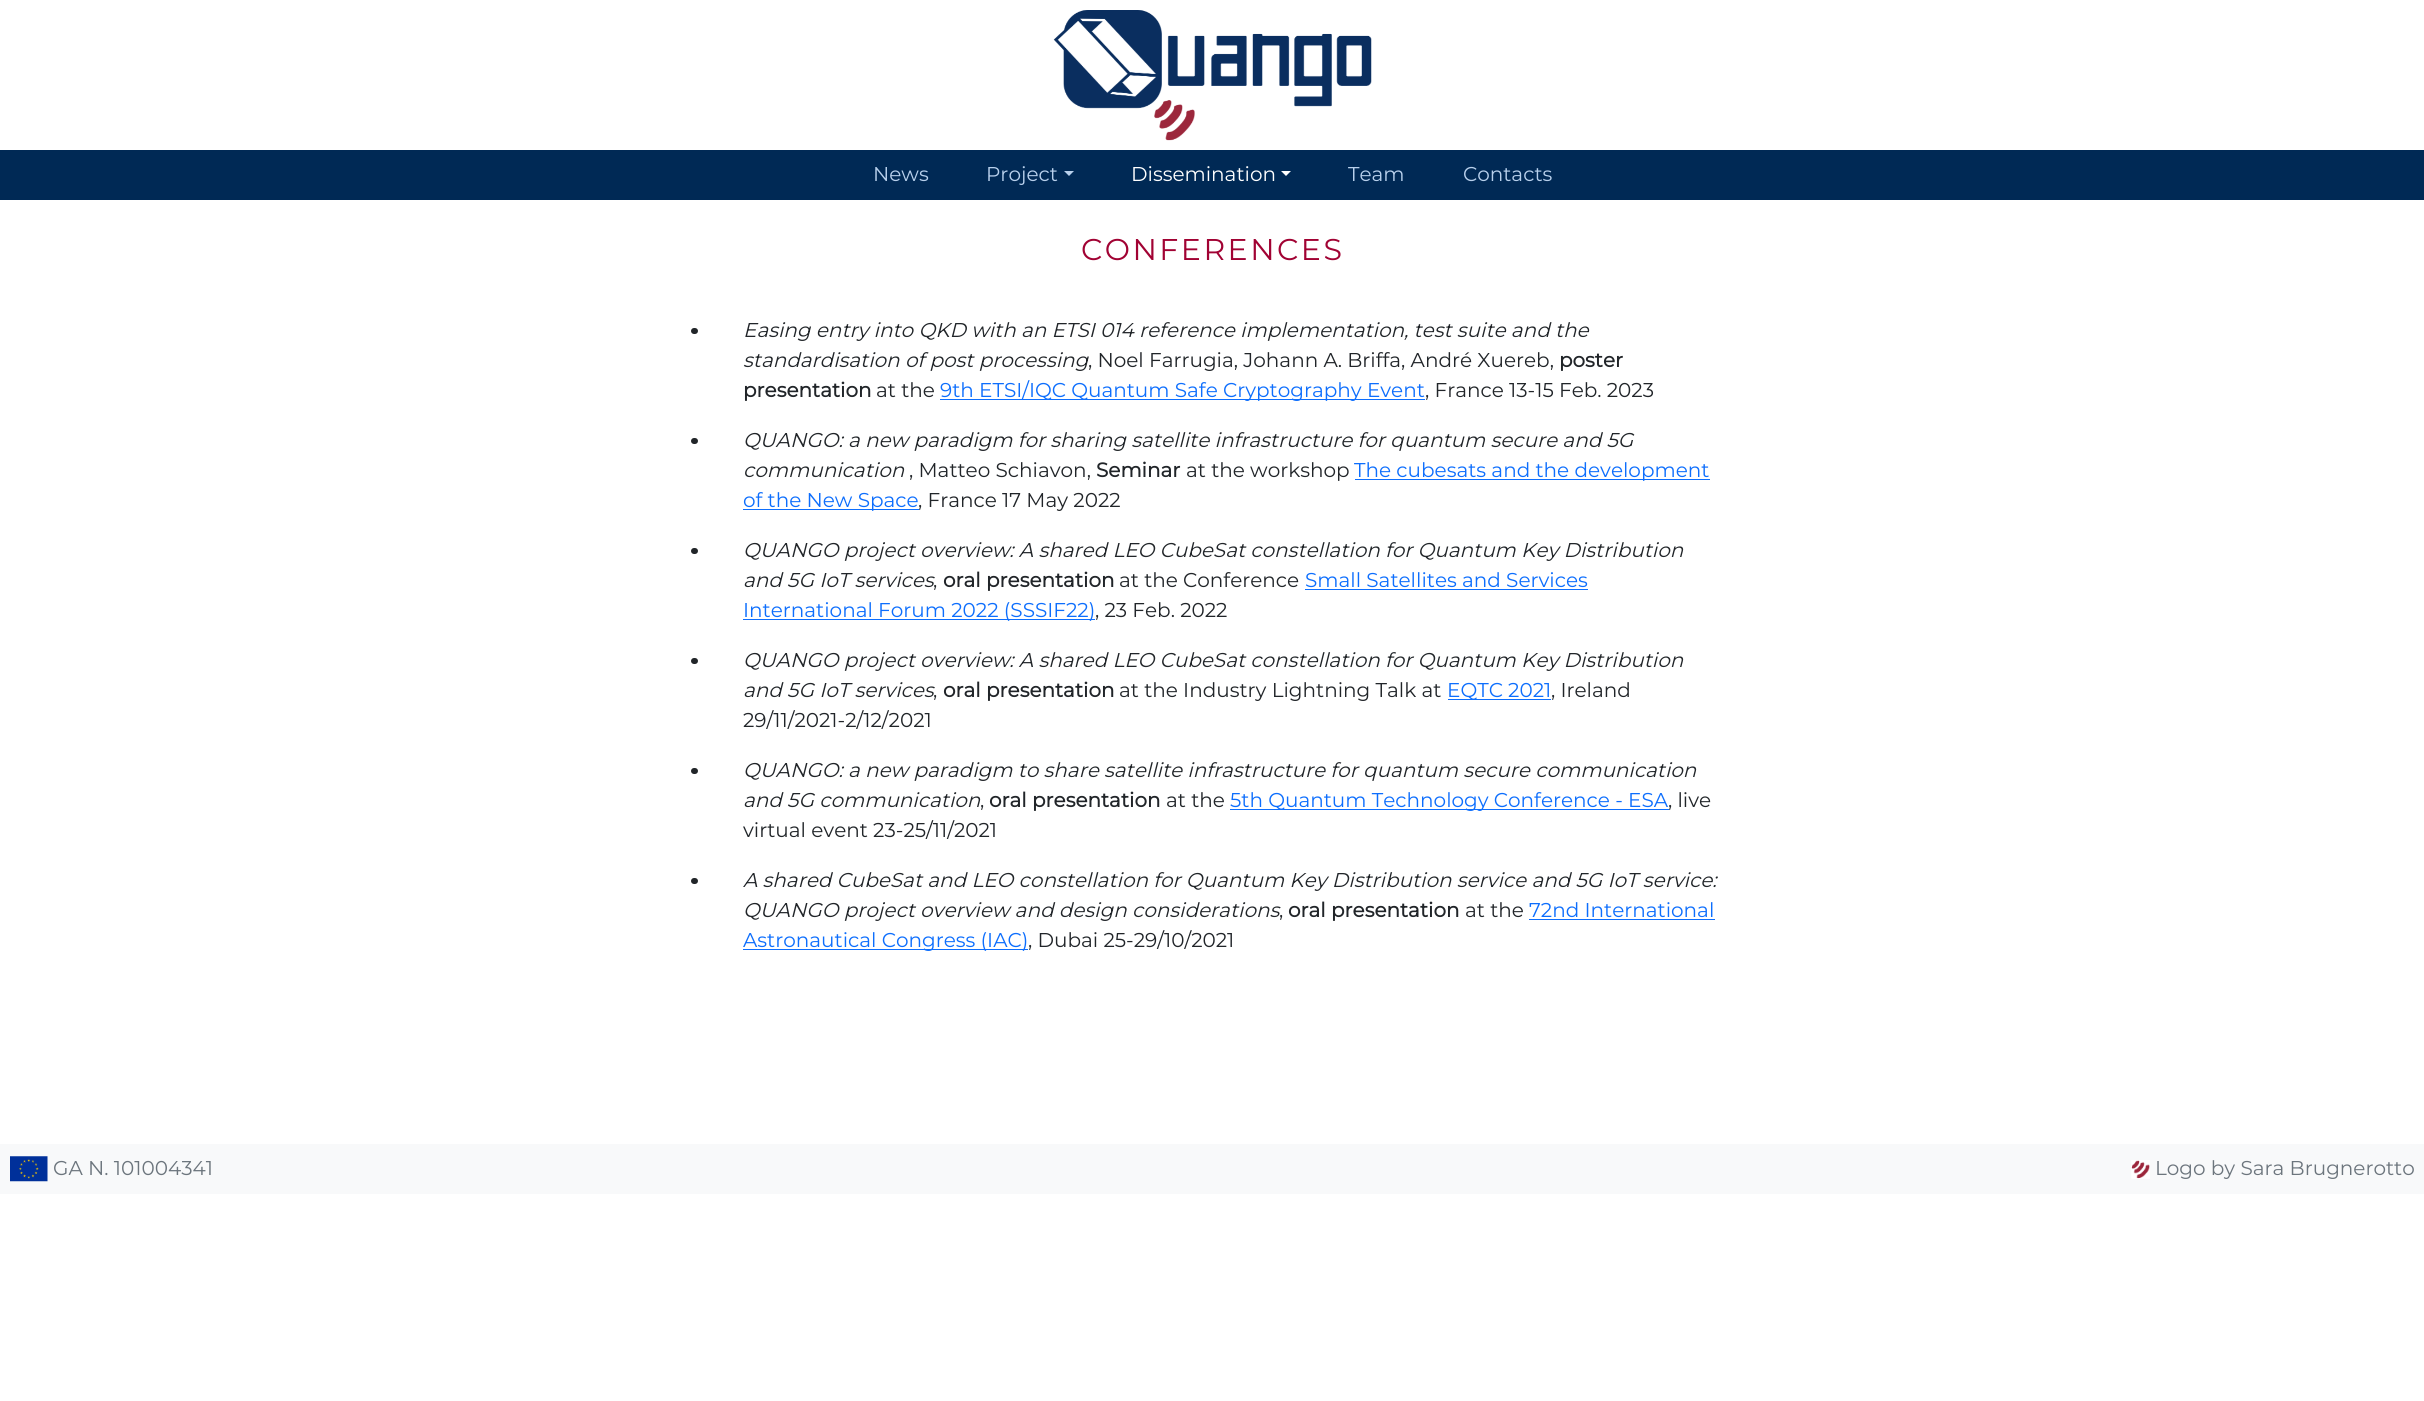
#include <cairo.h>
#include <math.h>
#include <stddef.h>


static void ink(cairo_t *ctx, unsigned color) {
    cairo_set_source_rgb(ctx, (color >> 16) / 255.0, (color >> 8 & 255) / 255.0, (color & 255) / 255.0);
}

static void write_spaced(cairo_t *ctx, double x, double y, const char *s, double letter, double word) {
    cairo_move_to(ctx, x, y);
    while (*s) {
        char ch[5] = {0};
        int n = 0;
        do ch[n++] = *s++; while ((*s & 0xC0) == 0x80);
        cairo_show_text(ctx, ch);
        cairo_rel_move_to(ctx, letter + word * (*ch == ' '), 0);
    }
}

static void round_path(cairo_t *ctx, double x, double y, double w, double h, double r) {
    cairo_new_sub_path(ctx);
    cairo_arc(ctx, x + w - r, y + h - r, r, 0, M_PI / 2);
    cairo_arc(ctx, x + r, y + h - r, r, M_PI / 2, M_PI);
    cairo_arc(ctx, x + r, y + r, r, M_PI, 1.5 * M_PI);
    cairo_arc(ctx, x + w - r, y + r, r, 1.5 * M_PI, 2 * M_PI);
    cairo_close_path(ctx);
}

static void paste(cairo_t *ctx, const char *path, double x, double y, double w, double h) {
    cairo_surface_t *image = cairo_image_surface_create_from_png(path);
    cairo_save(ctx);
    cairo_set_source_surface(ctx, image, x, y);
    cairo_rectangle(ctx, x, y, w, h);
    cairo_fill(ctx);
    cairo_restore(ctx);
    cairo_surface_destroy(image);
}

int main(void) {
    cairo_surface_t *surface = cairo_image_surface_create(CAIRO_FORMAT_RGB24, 2424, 1401);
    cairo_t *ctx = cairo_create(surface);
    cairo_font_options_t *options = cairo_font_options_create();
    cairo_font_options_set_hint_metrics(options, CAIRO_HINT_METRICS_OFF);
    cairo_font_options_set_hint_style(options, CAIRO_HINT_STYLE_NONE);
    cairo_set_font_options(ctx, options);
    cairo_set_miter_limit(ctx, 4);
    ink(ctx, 0xFFFFFF);
    cairo_paint(ctx);
    paste(ctx, "media/1.png", 1053, 10, 319, 131);
    ink(ctx, 0x002955);
    cairo_rectangle(ctx, 0, 150, 2424, 50);
    cairo_fill(ctx);
    cairo_select_font_face(ctx, "Montserrat Thin", CAIRO_FONT_SLANT_NORMAL, CAIRO_FONT_WEIGHT_NORMAL);
    cairo_set_font_size(ctx, 20);
    ink(ctx, 0xB8D0EC);
    cairo_move_to(ctx, 873, 181);
    cairo_show_text(ctx, "News");
    cairo_move_to(ctx, 986, 181);
    cairo_show_text(ctx, "Project");
    cairo_new_path(ctx);
    cairo_move_to(ctx, 1064, 171);
    cairo_line_to(ctx, 1074, 171);
    cairo_line_to(ctx, 1069, 176);
    cairo_close_path(ctx);
    cairo_fill(ctx);
    ink(ctx, 0xFFFFFF);
    cairo_move_to(ctx, 1131, 181);
    cairo_show_text(ctx, "Dissemination");
    cairo_new_path(ctx);
    cairo_move_to(ctx, 1281, 171);
    cairo_line_to(ctx, 1291, 171);
    cairo_line_to(ctx, 1286, 176);
    cairo_close_path(ctx);
    cairo_fill(ctx);
    ink(ctx, 0xB8D0EC);
    cairo_move_to(ctx, 1348, 181);
    cairo_show_text(ctx, "Team");
    cairo_move_to(ctx, 1463, 181);
    cairo_show_text(ctx, "Contacts");
    cairo_set_font_size(ctx, 30);
    ink(ctx, 0xA10233);
    write_spaced(ctx, 1081, 260, "CONFERENCES", 2.5, 0);
    ink(ctx, 0x212529);
    round_path(ctx, 691, 328, 7, 6, 3);
    cairo_fill(ctx);
    cairo_select_font_face(ctx, "Montserrat Thin", CAIRO_FONT_SLANT_ITALIC, CAIRO_FONT_WEIGHT_NORMAL);
    cairo_set_font_size(ctx, 20);
    cairo_move_to(ctx, 743, 337);
    cairo_show_text(ctx, "Easing entry into QKD with an ETSI 014 reference implementation, test suite and the");
    cairo_move_to(ctx, 743, 367);
    cairo_show_text(ctx, "standardisation of post processing");
    cairo_select_font_face(ctx, "Montserrat Thin", CAIRO_FONT_SLANT_NORMAL, CAIRO_FONT_WEIGHT_NORMAL);
    cairo_move_to(ctx, 1088, 367);
    cairo_show_text(ctx, ", Noel Farrugia, Johann A. Briffa, André Xuereb,");
    cairo_select_font_face(ctx, "Montserrat", CAIRO_FONT_SLANT_NORMAL, CAIRO_FONT_WEIGHT_BOLD);
    cairo_move_to(ctx, 1559, 367);
    cairo_show_text(ctx, "poster");
    cairo_move_to(ctx, 743, 397);
    cairo_show_text(ctx, "presentation");
    cairo_select_font_face(ctx, "Montserrat Thin", CAIRO_FONT_SLANT_NORMAL, CAIRO_FONT_WEIGHT_NORMAL);
    cairo_move_to(ctx, 876, 397);
    cairo_show_text(ctx, "at the");
    ink(ctx, 0x0D6EFD);
    cairo_rectangle(ctx, 940, 399, 485, 1);
    cairo_fill(ctx);
    cairo_move_to(ctx, 940, 397);
    cairo_show_text(ctx, "9th ETSI/IQC Quantum Safe Cryptography Event");
    ink(ctx, 0x212529);
    cairo_move_to(ctx, 1425, 397);
    cairo_show_text(ctx, ", France 13-15 Feb. 2023");
    round_path(ctx, 691, 438, 7, 6, 3);
    cairo_fill(ctx);
    cairo_select_font_face(ctx, "Montserrat Thin", CAIRO_FONT_SLANT_ITALIC, CAIRO_FONT_WEIGHT_NORMAL);
    cairo_move_to(ctx, 743, 447);
    cairo_show_text(ctx, "QUANGO: a new paradigm for sharing satellite infrastructure for quantum secure and 5G");
    cairo_move_to(ctx, 743, 477);
    cairo_show_text(ctx, "communication");
    cairo_select_font_face(ctx, "Montserrat Thin", CAIRO_FONT_SLANT_NORMAL, CAIRO_FONT_WEIGHT_NORMAL);
    cairo_move_to(ctx, 909, 477);
    cairo_show_text(ctx, ", Matteo Schiavon,");
    cairo_select_font_face(ctx, "Montserrat", CAIRO_FONT_SLANT_NORMAL, CAIRO_FONT_WEIGHT_BOLD);
    cairo_move_to(ctx, 1096, 477);
    cairo_show_text(ctx, "Seminar");
    cairo_select_font_face(ctx, "Montserrat Thin", CAIRO_FONT_SLANT_NORMAL, CAIRO_FONT_WEIGHT_NORMAL);
    cairo_move_to(ctx, 1186, 477);
    cairo_show_text(ctx, "at the workshop");
    ink(ctx, 0x0D6EFD);
    cairo_rectangle(ctx, 1355, 479, 355, 1);
    cairo_fill(ctx);
    cairo_move_to(ctx, 1354, 477);
    cairo_show_text(ctx, "The cubesats and the development");
    cairo_rectangle(ctx, 743, 509, 176, 1);
    cairo_fill(ctx);
    cairo_move_to(ctx, 743, 507);
    cairo_show_text(ctx, "of the New Space");
    ink(ctx, 0x212529);
    cairo_move_to(ctx, 918, 507);
    cairo_show_text(ctx, ", France 17 May 2022");
    round_path(ctx, 691, 548, 7, 6, 3);
    cairo_fill(ctx);
    cairo_select_font_face(ctx, "Montserrat Thin", CAIRO_FONT_SLANT_ITALIC, CAIRO_FONT_WEIGHT_NORMAL);
    cairo_move_to(ctx, 743, 557);
    cairo_show_text(ctx, "QUANGO project overview: A shared LEO CubeSat constellation for Quantum Key Distribution");
    cairo_move_to(ctx, 743, 587);
    cairo_show_text(ctx, "and 5G IoT services");
    cairo_select_font_face(ctx, "Montserrat Thin", CAIRO_FONT_SLANT_NORMAL, CAIRO_FONT_WEIGHT_NORMAL);
    cairo_move_to(ctx, 933, 587);
    cairo_show_text(ctx, ",");
    cairo_select_font_face(ctx, "Montserrat", CAIRO_FONT_SLANT_NORMAL, CAIRO_FONT_WEIGHT_BOLD);
    cairo_move_to(ctx, 943, 587);
    cairo_show_text(ctx, "oral presentation");
    cairo_select_font_face(ctx, "Montserrat Thin", CAIRO_FONT_SLANT_NORMAL, CAIRO_FONT_WEIGHT_NORMAL);
    cairo_move_to(ctx, 1119, 587);
    cairo_show_text(ctx, "at the Conference");
    ink(ctx, 0x0D6EFD);
    cairo_move_to(ctx, 1305, 587);
    cairo_show_text(ctx, "Small Satellites and Services");
    cairo_rectangle(ctx, 1305, 589, 283, 1);
    cairo_fill(ctx);
    cairo_rectangle(ctx, 743, 619, 352, 1);
    cairo_fill(ctx);
    cairo_move_to(ctx, 743, 617);
    cairo_show_text(ctx, "International Forum 2022 (SSSIF22)");
    ink(ctx, 0x212529);
    cairo_move_to(ctx, 1095, 617);
    cairo_show_text(ctx, ", 23 Feb. 2022");
    round_path(ctx, 691, 658, 7, 6, 3);
    cairo_fill(ctx);
    cairo_select_font_face(ctx, "Montserrat Thin", CAIRO_FONT_SLANT_ITALIC, CAIRO_FONT_WEIGHT_NORMAL);
    cairo_move_to(ctx, 743, 667);
    cairo_show_text(ctx, "QUANGO project overview: A shared LEO CubeSat constellation for Quantum Key Distribution");
    cairo_move_to(ctx, 743, 697);
    cairo_show_text(ctx, "and 5G IoT services");
    cairo_select_font_face(ctx, "Montserrat Thin", CAIRO_FONT_SLANT_NORMAL, CAIRO_FONT_WEIGHT_NORMAL);
    cairo_move_to(ctx, 933, 697);
    cairo_show_text(ctx, ",");
    cairo_select_font_face(ctx, "Montserrat", CAIRO_FONT_SLANT_NORMAL, CAIRO_FONT_WEIGHT_BOLD);
    cairo_move_to(ctx, 943, 697);
    cairo_show_text(ctx, "oral presentation");
    cairo_select_font_face(ctx, "Montserrat Thin", CAIRO_FONT_SLANT_NORMAL, CAIRO_FONT_WEIGHT_NORMAL);
    cairo_move_to(ctx, 1119, 697);
    cairo_show_text(ctx, "at the Industry Lightning Talk at");
    ink(ctx, 0x0D6EFD);
    cairo_rectangle(ctx, 1448, 699, 103, 1);
    cairo_fill(ctx);
    cairo_move_to(ctx, 1447, 697);
    cairo_show_text(ctx, "EQTC 2021");
    ink(ctx, 0x212529);
    cairo_move_to(ctx, 1551, 697);
    cairo_show_text(ctx, ", Ireland");
    cairo_move_to(ctx, 743, 727);
    cairo_show_text(ctx, "29/11/2021-2/12/2021");
    round_path(ctx, 691, 768, 7, 6, 3);
    cairo_fill(ctx);
    cairo_select_font_face(ctx, "Montserrat Thin", CAIRO_FONT_SLANT_ITALIC, CAIRO_FONT_WEIGHT_NORMAL);
    cairo_move_to(ctx, 743, 777);
    cairo_show_text(ctx, "QUANGO: a new paradigm to share satellite infrastructure for quantum secure communication");
    cairo_move_to(ctx, 743, 807);
    cairo_show_text(ctx, "and 5G communication");
    cairo_select_font_face(ctx, "Montserrat Thin", CAIRO_FONT_SLANT_NORMAL, CAIRO_FONT_WEIGHT_NORMAL);
    cairo_move_to(ctx, 980, 807);
    cairo_show_text(ctx, ",");
    cairo_select_font_face(ctx, "Montserrat", CAIRO_FONT_SLANT_NORMAL, CAIRO_FONT_WEIGHT_BOLD);
    cairo_move_to(ctx, 989, 807);
    cairo_show_text(ctx, "oral presentation");
    cairo_select_font_face(ctx, "Montserrat Thin", CAIRO_FONT_SLANT_NORMAL, CAIRO_FONT_WEIGHT_NORMAL);
    cairo_move_to(ctx, 1166, 807);
    cairo_show_text(ctx, "at the");
    ink(ctx, 0x0D6EFD);
    cairo_rectangle(ctx, 1230, 809, 439, 1);
    cairo_fill(ctx);
    cairo_move_to(ctx, 1230, 807);
    cairo_show_text(ctx, "5th Quantum Technology Conference - ESA");
    ink(ctx, 0x212529);
    cairo_move_to(ctx, 1668, 807);
    cairo_show_text(ctx, ", live");
    cairo_move_to(ctx, 743, 837);
    cairo_show_text(ctx, "virtual event 23-25/11/2021");
    round_path(ctx, 691, 878, 7, 6, 3);
    cairo_fill(ctx);
    cairo_select_font_face(ctx, "Montserrat Thin", CAIRO_FONT_SLANT_ITALIC, CAIRO_FONT_WEIGHT_NORMAL);
    cairo_move_to(ctx, 743, 887);
    cairo_show_text(ctx, "A shared CubeSat and LEO constellation for Quantum Key Distribution service and 5G IoT service:");
    cairo_move_to(ctx, 743, 917);
    cairo_show_text(ctx, "QUANGO project overview and design considerations");
    cairo_select_font_face(ctx, "Montserrat", CAIRO_FONT_SLANT_NORMAL, CAIRO_FONT_WEIGHT_BOLD);
    cairo_move_to(ctx, 1288, 917);
    cairo_show_text(ctx, "oral presentation");
    cairo_select_font_face(ctx, "Montserrat Thin", CAIRO_FONT_SLANT_NORMAL, CAIRO_FONT_WEIGHT_NORMAL);
    cairo_move_to(ctx, 1465, 917);
    cairo_show_text(ctx, "at the");
    ink(ctx, 0x0D6EFD);
    cairo_move_to(ctx, 1529, 917);
    cairo_show_text(ctx, "72nd International");
    cairo_rectangle(ctx, 1529, 919, 186, 1);
    cairo_fill(ctx);
    ink(ctx, 0x212529);
    cairo_move_to(ctx, 1279, 917);
    cairo_show_text(ctx, ",");
    ink(ctx, 0x0D6EFD);
    cairo_rectangle(ctx, 743, 949, 285, 1);
    cairo_fill(ctx);
    cairo_move_to(ctx, 743, 947);
    cairo_show_text(ctx, "Astronautical Congress (IAC)");
    ink(ctx, 0x212529);
    cairo_move_to(ctx, 1028, 947);
    cairo_show_text(ctx, ", Dubai 25-29/10/2021");
    ink(ctx, 0xF8F9FA);
    cairo_rectangle(ctx, 0, 1144, 2424, 50);
    cairo_fill(ctx);
    paste(ctx, "media/2.png", 10, 1156, 38, 26);
    ink(ctx, 0x6C757D);
    cairo_move_to(ctx, 53, 1175);
    cairo_show_text(ctx, "GA N. 101004341");
    paste(ctx, "media/3.png", 2131, 1160, 19, 19);
    cairo_move_to(ctx, 2155, 1175);
    cairo_show_text(ctx, "Logo by Sara Brugnerotto");
    cairo_surface_write_to_png(surface, "image.png");
    cairo_font_options_destroy(options);
    cairo_destroy(ctx);
    cairo_surface_destroy(surface);
    return 0;
}
